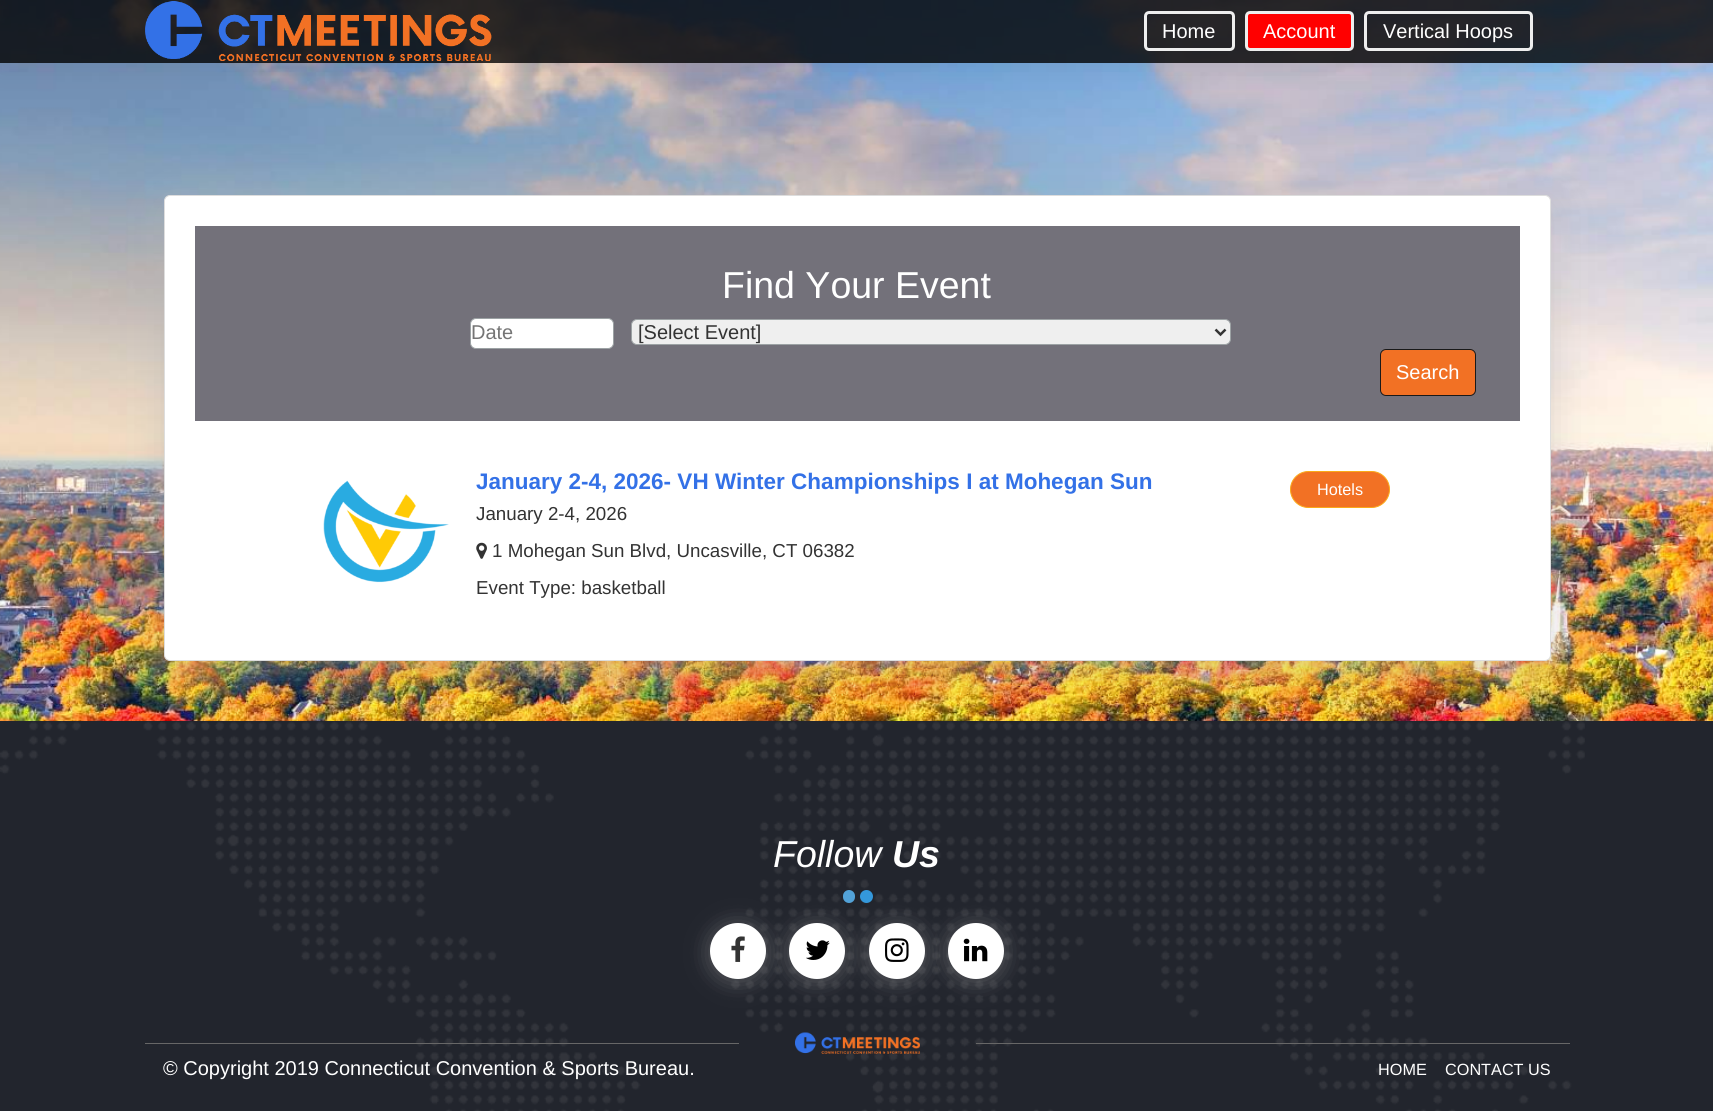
#include <cairo.h>
#include <math.h>
#include <stddef.h>


static void ink(cairo_t *ctx, unsigned color) {
    cairo_set_source_rgb(ctx, (color >> 16) / 255.0, (color >> 8 & 255) / 255.0, (color & 255) / 255.0);
}

static void round_path(cairo_t *ctx, double x, double y, double w, double h, double r) {
    cairo_new_sub_path(ctx);
    cairo_arc(ctx, x + w - r, y + h - r, r, 0, M_PI / 2);
    cairo_arc(ctx, x + r, y + h - r, r, M_PI / 2, M_PI);
    cairo_arc(ctx, x + r, y + r, r, M_PI, 1.5 * M_PI);
    cairo_arc(ctx, x + w - r, y + r, r, 1.5 * M_PI, 2 * M_PI);
    cairo_close_path(ctx);
}

static void blur_box(cairo_t *ctx, double x, double y, double w, double h, double r, double blur, double alpha) {
    cairo_push_group_with_content(ctx, CAIRO_CONTENT_ALPHA);
    cairo_set_operator(ctx, CAIRO_OPERATOR_SOURCE);
    for (int i = 15; i >= -15 && fmin(w, h) + blur * i / 3 > 0; i -= 2) {
        double e = blur * i / 6;
        cairo_set_source_rgba(ctx, 0, 0, 0, alpha * erfc((i - 1) / 8.5) / 2);
        round_path(ctx, x - e, y - e, w + 2 * e, h + 2 * e, fmax(0, fmin(r + e + blur * .6, fmin(w, h) / 2 + e)));
        cairo_fill(ctx);
    }
    cairo_pattern_t *soft = cairo_pop_group(ctx);
    cairo_mask(ctx, soft);
    cairo_pattern_destroy(soft);
}

static void paste(cairo_t *ctx, const char *path, double x, double y, double w, double h) {
    cairo_surface_t *image = cairo_image_surface_create_from_png(path);
    cairo_save(ctx);
    cairo_set_source_surface(ctx, image, x, y);
    cairo_rectangle(ctx, x, y, w, h);
    cairo_fill(ctx);
    cairo_restore(ctx);
    cairo_surface_destroy(image);
}

int main(void) {
    cairo_surface_t *surface = cairo_image_surface_create(CAIRO_FORMAT_RGB24, 1713, 1111);
    cairo_t *ctx = cairo_create(surface);
    cairo_font_options_t *options = cairo_font_options_create();
    cairo_font_options_set_hint_metrics(options, CAIRO_HINT_METRICS_OFF);
    cairo_font_options_set_hint_style(options, CAIRO_HINT_STYLE_NONE);
    cairo_set_font_options(ctx, options);
    cairo_set_miter_limit(ctx, 4);
    ink(ctx, 0xFFFFFF);
    cairo_paint(ctx);
    paste(ctx, "media/1.png", 0, 0, 1713, 721);
    cairo_save(ctx);
    cairo_set_fill_rule(ctx, CAIRO_FILL_RULE_EVEN_ODD);
    cairo_new_path(ctx);
    cairo_move_to(ctx, 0, 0);
    cairo_line_to(ctx, 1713, 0);
    cairo_line_to(ctx, 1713, 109);
    cairo_line_to(ctx, 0, 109);
    cairo_close_path(ctx);
    cairo_move_to(ctx, 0, 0);
    cairo_line_to(ctx, 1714, 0);
    cairo_line_to(ctx, 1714, 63);
    cairo_line_to(ctx, 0, 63);
    cairo_close_path(ctx);
    cairo_clip(ctx);
    ink(ctx, 0x000000);
    blur_box(ctx, 0, 8, 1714, 62, 0, 12.5, 0.06);
    cairo_restore(ctx);
    cairo_set_source_rgba(ctx, 0, 0, 0, 0.8);
    cairo_rectangle(ctx, 0, 0, 1713, 63);
    cairo_fill(ctx);
    paste(ctx, "media/2.png", 145, 1, 347, 60);
    round_path(ctx, 1145.5, 12.5, 88, 37, 3.5);
    ink(ctx, 0xEEEEEE);
    cairo_set_line_width(ctx, 3);
    cairo_stroke(ctx);
    cairo_select_font_face(ctx, "Liberation Sans", CAIRO_FONT_SLANT_NORMAL, CAIRO_FONT_WEIGHT_NORMAL);
    cairo_set_font_size(ctx, 20);
    ink(ctx, 0xFFFFFF);
    cairo_move_to(ctx, 1162, 38);
    cairo_show_text(ctx, "Home");
    ink(ctx, 0xFF0000);
    round_path(ctx, 1246.5, 12.5, 106, 37, 3.5);
    cairo_fill_preserve(ctx);
    ink(ctx, 0xEEEEEE);
    cairo_stroke(ctx);
    ink(ctx, 0xFFFFFF);
    cairo_move_to(ctx, 1263, 38);
    cairo_show_text(ctx, "Account");
    round_path(ctx, 1365.5, 12.5, 166, 37, 3.5);
    ink(ctx, 0xEEEEEE);
    cairo_stroke(ctx);
    ink(ctx, 0xFFFFFF);
    cairo_move_to(ctx, 1383, 38);
    cairo_show_text(ctx, "Vertical Hoops");
    ink(ctx, 0xB3B3B3);
    blur_box(ctx, 164, 205, 1387, 466, 6, 20, 0.44);
    ink(ctx, 0xFFFFFF);
    round_path(ctx, 164.5, 195.5, 1386, 465, 5.5);
    cairo_fill_preserve(ctx);
    ink(ctx, 0xDDDDDD);
    cairo_set_line_width(ctx, 1);
    cairo_stroke(ctx);
    ink(ctx, 0x73717A);
    cairo_rectangle(ctx, 195, 226, 1325, 195);
    cairo_fill(ctx);
    cairo_set_font_size(ctx, 37.5);
    ink(ctx, 0xFFFFFF);
    cairo_move_to(ctx, 722, 298);
    cairo_show_text(ctx, "Find Your Event");
    round_path(ctx, 470.5, 318.5, 143, 30, 5.5);
    cairo_fill_preserve(ctx);
    ink(ctx, 0x9CA2A4);
    cairo_stroke(ctx);
    cairo_set_font_size(ctx, 20);
    ink(ctx, 0x757575);
    cairo_move_to(ctx, 471, 339);
    cairo_show_text(ctx, "Date");
    ink(ctx, 0xEFEFEF);
    round_path(ctx, 631.5, 319.5, 599, 25, 5.5);
    cairo_fill_preserve(ctx);
    ink(ctx, 0x9CA2A4);
    cairo_stroke(ctx);
    cairo_new_path(ctx);
    cairo_move_to(ctx, 1215.5, 329.5);
    cairo_line_to(ctx, 1220.5, 334.5);
    cairo_line_to(ctx, 1225.5, 329.5);
    ink(ctx, 0x333333);
    cairo_set_line_width(ctx, 2.5);
    cairo_stroke(ctx);
    cairo_move_to(ctx, 638, 339);
    cairo_show_text(ctx, "[Select Event]");
    ink(ctx, 0xF27124);
    round_path(ctx, 1380.5, 349.5, 95, 46, 5.5);
    cairo_fill_preserve(ctx);
    ink(ctx, 0x191919);
    cairo_set_line_width(ctx, 1);
    cairo_stroke(ctx);
    ink(ctx, 0xFFFFFF);
    cairo_move_to(ctx, 1396, 379);
    cairo_show_text(ctx, "Search");
    paste(ctx, "media/3.png", 323, 480, 126, 103);
    cairo_select_font_face(ctx, "Liberation Sans", CAIRO_FONT_SLANT_NORMAL, CAIRO_FONT_WEIGHT_BOLD);
    cairo_set_font_size(ctx, 22.5);
    ink(ctx, 0x3371E7);
    cairo_move_to(ctx, 476, 489);
    cairo_show_text(ctx, "January 2-4, 2026- VH Winter Championships I at Mohegan Sun");
    cairo_select_font_face(ctx, "Liberation Sans", CAIRO_FONT_SLANT_NORMAL, CAIRO_FONT_WEIGHT_NORMAL);
    cairo_set_font_size(ctx, 18.75);
    ink(ctx, 0x333333);
    cairo_move_to(ctx, 476, 520);
    cairo_show_text(ctx, "January 2-4, 2026");
    paste(ctx, "media/4.png", 476, 542, 11, 17);
    cairo_move_to(ctx, 492, 557);
    cairo_show_text(ctx, "1 Mohegan Sun Blvd, Uncasville, CT 06382");
    cairo_move_to(ctx, 476, 594);
    cairo_show_text(ctx, "Event Type: basketball");
    ink(ctx, 0xF27124);
    round_path(ctx, 1290.5, 471.5, 99, 36, 18);
    cairo_fill_preserve(ctx);
    ink(ctx, 0xFAAA19);
    cairo_stroke(ctx);
    cairo_set_font_size(ctx, 16.25);
    ink(ctx, 0xFFFFFF);
    cairo_move_to(ctx, 1317, 495);
    cairo_show_text(ctx, "Hotels");
    ink(ctx, 0x22252D);
    cairo_rectangle(ctx, 0, 721, 1713, 390);
    cairo_fill(ctx);
    paste(ctx, "media/5.png", 0, 721, 1585, 390);
    cairo_select_font_face(ctx, "Liberation Sans", CAIRO_FONT_SLANT_ITALIC, CAIRO_FONT_WEIGHT_NORMAL);
    cairo_set_font_size(ctx, 37.5);
    ink(ctx, 0xFFFFFF);
    cairo_move_to(ctx, 773, 867);
    cairo_show_text(ctx, "Follow");
    cairo_select_font_face(ctx, "Liberation Sans", CAIRO_FONT_SLANT_ITALIC, CAIRO_FONT_WEIGHT_BOLD);
    cairo_move_to(ctx, 892, 867);
    cairo_show_text(ctx, "Us");
    ink(ctx, 0x9B9B9B);
    blur_box(ctx, 710, 925, 56, 56, 28, 11, 0.48);
    ink(ctx, 0xFFFFFF);
    cairo_arc(ctx, 738, 951, 28, 0, 2 * M_PI);
    cairo_fill(ctx);
    ink(ctx, 0x9B9B9B);
    blur_box(ctx, 789, 925, 56, 56, 28, 11, 0.48);
    ink(ctx, 0xFFFFFF);
    cairo_arc(ctx, 817, 951, 28, 0, 2 * M_PI);
    cairo_fill(ctx);
    ink(ctx, 0x9B9B9B);
    blur_box(ctx, 869, 925, 56, 56, 28, 11, 0.48);
    ink(ctx, 0x52A2D8);
    round_path(ctx, 843, 890, 12, 13, 6);
    cairo_fill(ctx);
    ink(ctx, 0x3498DB);
    cairo_arc(ctx, 866.5, 896.5, 6.5, 0, 2 * M_PI);
    cairo_fill(ctx);
    paste(ctx, "media/6.png", 731, 936, 14, 26);
    paste(ctx, "media/7.png", 806, 940, 24, 20);
    ink(ctx, 0xFFFFFF);
    cairo_arc(ctx, 897, 951, 28, 0, 2 * M_PI);
    cairo_fill(ctx);
    paste(ctx, "media/8.png", 885, 938, 24, 24);
    ink(ctx, 0x9B9B9B);
    blur_box(ctx, 948, 925, 56, 56, 28, 11, 0.48);
    ink(ctx, 0xFFFFFF);
    cairo_arc(ctx, 976, 951, 28, 0, 2 * M_PI);
    cairo_fill(ctx);
    paste(ctx, "media/9.png", 963, 938, 25, 24);
    ink(ctx, 0x676767);
    cairo_rectangle(ctx, 145, 1043, 594, 1);
    cairo_fill(ctx);
    paste(ctx, "media/10.png", 795, 1032, 125, 22);
    cairo_rectangle(ctx, 976, 1043, 594, 1);
    cairo_fill(ctx);
    cairo_select_font_face(ctx, "Liberation Sans", CAIRO_FONT_SLANT_NORMAL, CAIRO_FONT_WEIGHT_NORMAL);
    cairo_set_font_size(ctx, 20);
    ink(ctx, 0xFFFFFF);
    cairo_move_to(ctx, 163, 1075);
    cairo_show_text(ctx, "© Copyright 2019 Connecticut Convention & Sports Bureau.");
    cairo_set_font_size(ctx, 16.25);
    cairo_move_to(ctx, 1378, 1075);
    cairo_show_text(ctx, "HOME");
    cairo_move_to(ctx, 1445, 1075);
    cairo_show_text(ctx, "CONTACT US");
    cairo_surface_write_to_png(surface, "image.png");
    cairo_font_options_destroy(options);
    cairo_destroy(ctx);
    cairo_surface_destroy(surface);
    return 0;
}
